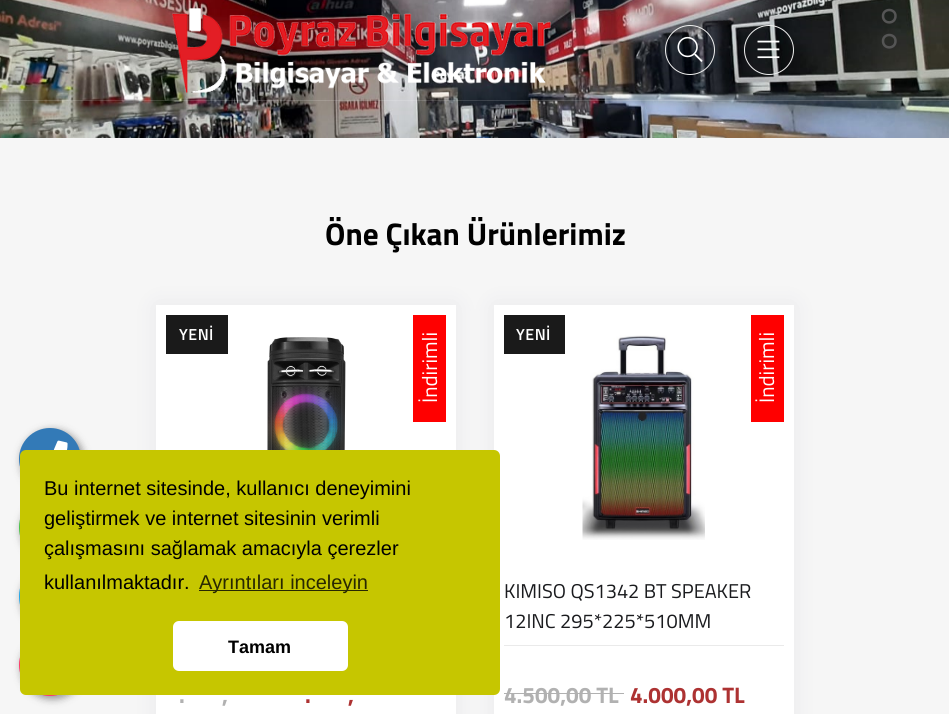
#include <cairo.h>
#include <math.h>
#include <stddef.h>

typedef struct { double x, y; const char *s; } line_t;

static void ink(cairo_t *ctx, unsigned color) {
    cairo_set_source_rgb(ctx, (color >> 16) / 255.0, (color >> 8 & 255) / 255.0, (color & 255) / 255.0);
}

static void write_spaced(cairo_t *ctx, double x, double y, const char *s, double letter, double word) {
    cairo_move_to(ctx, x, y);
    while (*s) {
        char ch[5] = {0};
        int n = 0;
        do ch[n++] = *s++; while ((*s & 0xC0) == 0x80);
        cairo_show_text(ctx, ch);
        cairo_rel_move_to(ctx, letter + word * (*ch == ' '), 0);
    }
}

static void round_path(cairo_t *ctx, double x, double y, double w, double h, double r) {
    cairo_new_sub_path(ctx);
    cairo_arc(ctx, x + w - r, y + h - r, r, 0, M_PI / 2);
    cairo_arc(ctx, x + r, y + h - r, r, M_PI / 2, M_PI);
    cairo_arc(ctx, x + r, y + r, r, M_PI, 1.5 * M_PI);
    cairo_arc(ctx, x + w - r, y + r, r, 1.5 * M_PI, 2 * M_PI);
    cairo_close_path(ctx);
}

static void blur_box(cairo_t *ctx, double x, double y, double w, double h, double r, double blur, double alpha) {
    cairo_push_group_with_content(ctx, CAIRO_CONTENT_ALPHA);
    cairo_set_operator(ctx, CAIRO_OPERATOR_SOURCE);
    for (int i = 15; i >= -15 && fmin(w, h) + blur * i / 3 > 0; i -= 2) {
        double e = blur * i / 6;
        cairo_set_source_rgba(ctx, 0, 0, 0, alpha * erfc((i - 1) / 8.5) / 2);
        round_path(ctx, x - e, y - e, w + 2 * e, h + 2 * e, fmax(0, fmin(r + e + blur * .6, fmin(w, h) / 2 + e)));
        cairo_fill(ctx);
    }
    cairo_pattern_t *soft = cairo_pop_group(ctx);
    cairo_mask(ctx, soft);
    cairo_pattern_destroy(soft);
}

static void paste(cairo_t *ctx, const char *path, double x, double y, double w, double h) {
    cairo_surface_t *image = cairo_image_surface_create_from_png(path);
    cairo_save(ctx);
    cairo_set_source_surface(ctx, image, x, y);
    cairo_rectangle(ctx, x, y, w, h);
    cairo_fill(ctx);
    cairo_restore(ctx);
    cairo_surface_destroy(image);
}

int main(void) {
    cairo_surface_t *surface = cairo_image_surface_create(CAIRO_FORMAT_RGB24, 949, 714);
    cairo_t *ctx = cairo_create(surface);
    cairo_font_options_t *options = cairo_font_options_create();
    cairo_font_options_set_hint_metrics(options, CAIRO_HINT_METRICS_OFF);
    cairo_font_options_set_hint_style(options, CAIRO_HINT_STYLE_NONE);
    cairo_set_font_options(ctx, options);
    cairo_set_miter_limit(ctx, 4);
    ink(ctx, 0xF6F6F6);
    cairo_paint(ctx);
    paste(ctx, "media/5.png", 0, 0, 949, 138);
    cairo_set_source_rgba(ctx, 1, 1, 1, 0.14);
    cairo_rectangle(ctx, 0, 100, 949, 1);
    cairo_fill(ctx);
    paste(ctx, "media/1.png", 172, 8, 379, 85);
    cairo_arc(ctx, 690, 50, 24.5, 0, 2 * M_PI);
    ink(ctx, 0xEEEEEE);
    cairo_set_line_width(ctx, 1);
    cairo_stroke(ctx);
    paste(ctx, "media/2.png", 677, 36, 26, 26);
    cairo_arc(ctx, 769, 50, 24.5, 0, 2 * M_PI);
    cairo_stroke(ctx);
    paste(ctx, "media/3.png", 757, 40, 23, 19);
    ink(ctx, 0x000000);
    blur_box(ctx, 21, 430, 63, 63, 31.5, 4, 0.4);
    ink(ctx, 0x337AB7);
    cairo_arc(ctx, 50, 459, 31, 0, 2 * M_PI);
    cairo_fill(ctx);
    paste(ctx, "media/4.png", 53, 440, 15, 10);
    cairo_new_path(ctx);
    cairo_move_to(ctx, 895.5, 16);
    cairo_curve_to(ctx, 895.5, 24.5, 883, 24.5, 883, 16);
    cairo_curve_to(ctx, 883, 8, 895.5, 8, 895.5, 16);
    cairo_close_path(ctx);
    cairo_move_to(ctx, 895.5, 41);
    cairo_curve_to(ctx, 895.5, 49.5, 883, 49.5, 883, 41);
    cairo_curve_to(ctx, 883, 33, 895.5, 33, 895.5, 41);
    cairo_close_path(ctx);
    ink(ctx, 0x555555);
    cairo_set_line_width(ctx, 2.5);
    cairo_stroke(ctx);
    cairo_select_font_face(ctx, "Titillium Web", CAIRO_FONT_SLANT_NORMAL, CAIRO_FONT_WEIGHT_BOLD);
    cairo_set_font_size(ctx, 31.25);
    ink(ctx, 0x000000);
    cairo_move_to(ctx, 325, 245);
    cairo_show_text(ctx, "Öne Çıkan Ürünlerimiz");
    ink(ctx, 0x3E3E65);
    blur_box(ctx, 156, 305, 300, 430, 0, 12.5, 0.07);
    ink(ctx, 0xFFFFFF);
    cairo_rectangle(ctx, 156, 305, 300, 409);
    cairo_fill(ctx);
    ink(ctx, 0x1A1A1A);
    cairo_rectangle(ctx, 166, 315, 62, 39);
    cairo_fill(ctx);
    cairo_select_font_face(ctx, "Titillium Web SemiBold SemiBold", CAIRO_FONT_SLANT_NORMAL, CAIRO_FONT_WEIGHT_NORMAL);
    cairo_set_font_size(ctx, 16);
    ink(ctx, 0xFFFFFF);
    write_spaced(ctx, 179, 340, "YENİ", 0.5, 0);
    paste(ctx, "media/6.png", 267, 337, 79, 113);
    ink(ctx, 0xFF0000);
    cairo_rectangle(ctx, 413, 315, 33, 107);
    cairo_fill(ctx);
    cairo_select_font_face(ctx, "Titillium Web", CAIRO_FONT_SLANT_NORMAL, CAIRO_FONT_WEIGHT_NORMAL);
    cairo_set_font_size(ctx, 21);
    ink(ctx, 0xFFFFFF);
    cairo_save(ctx);
    cairo_translate(ctx, 437, 403);
    cairo_rotate(ctx, -90 * M_PI / 180);
    cairo_move_to(ctx, 0, 0);
    cairo_show_text(ctx, "İndirimli");
    cairo_restore(ctx);
    cairo_select_font_face(ctx, "Titillium Web", CAIRO_FONT_SLANT_NORMAL, CAIRO_FONT_WEIGHT_BOLD);
    cairo_set_font_size(ctx, 22.5);
    ink(ctx, 0xB1B1B1);
    cairo_move_to(ctx, 179, 703);
    cairo_show_text(ctx, ".");
    cairo_move_to(ctx, 222, 703);
    cairo_show_text(ctx, ",");
    ink(ctx, 0xAD3232);
    cairo_move_to(ctx, 305, 703);
    cairo_show_text(ctx, ".");
    cairo_move_to(ctx, 348, 703);
    cairo_show_text(ctx, ",");
    ink(ctx, 0x3E3E65);
    blur_box(ctx, 494, 305, 300, 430, 0, 12.5, 0.07);
    ink(ctx, 0xFFFFFF);
    cairo_rectangle(ctx, 494, 305, 300, 409);
    cairo_fill(ctx);
    ink(ctx, 0x1A1A1A);
    cairo_rectangle(ctx, 504, 315, 61, 39);
    cairo_fill(ctx);
    cairo_select_font_face(ctx, "Titillium Web SemiBold SemiBold", CAIRO_FONT_SLANT_NORMAL, CAIRO_FONT_WEIGHT_NORMAL);
    cairo_set_font_size(ctx, 16);
    ink(ctx, 0xFFFFFF);
    write_spaced(ctx, 516, 340, "YENİ", 0.5, 0);
    paste(ctx, "media/7.png", 582, 335, 123, 205);
    ink(ctx, 0xFF0000);
    cairo_rectangle(ctx, 751, 315, 33, 107);
    cairo_fill(ctx);
    cairo_select_font_face(ctx, "Titillium Web", CAIRO_FONT_SLANT_NORMAL, CAIRO_FONT_WEIGHT_NORMAL);
    cairo_set_font_size(ctx, 21);
    ink(ctx, 0xFFFFFF);
    cairo_save(ctx);
    cairo_translate(ctx, 774, 403);
    cairo_rotate(ctx, -90 * M_PI / 180);
    cairo_move_to(ctx, 0, 0);
    cairo_show_text(ctx, "İndirimli");
    cairo_restore(ctx);
    ink(ctx, 0xEAEAEA);
    cairo_rectangle(ctx, 504, 645, 280, 1);
    cairo_fill(ctx);
    cairo_set_font_size(ctx, 20);
    ink(ctx, 0x1A1B1E);
    cairo_move_to(ctx, 504, 598);
    cairo_show_text(ctx, "KIMISO QS1342 BT SPEAKER");
    cairo_move_to(ctx, 504, 628);
    cairo_show_text(ctx, "12INC 295*225*510MM");
    cairo_select_font_face(ctx, "Titillium Web", CAIRO_FONT_SLANT_NORMAL, CAIRO_FONT_WEIGHT_BOLD);
    cairo_set_font_size(ctx, 22.5);
    ink(ctx, 0xB1B1B1);
    cairo_move_to(ctx, 504, 703);
    cairo_show_text(ctx, "4.500,00 TL");
    cairo_rectangle(ctx, 504, 693, 120, 1);
    cairo_fill(ctx);
    ink(ctx, 0xAD3232);
    cairo_move_to(ctx, 630, 703);
    cairo_show_text(ctx, "4.000,00 TL");
    ink(ctx, 0x000000);
    blur_box(ctx, 21, 568, 63, 62, 31, 4, 0.4);
    ink(ctx, 0x27A7E5);
    round_path(ctx, 19, 565, 62, 63, 31);
    cairo_fill(ctx);
    ink(ctx, 0x000000);
    blur_box(ctx, 21, 499, 63, 62, 31, 4, 0.4);
    ink(ctx, 0x4DC247);
    round_path(ctx, 19, 496, 62, 63, 31);
    cairo_fill(ctx);
    ink(ctx, 0x000000);
    blur_box(ctx, 21, 636, 63, 63, 31.5, 4, 0.4);
    ink(ctx, 0xFD3A67);
    cairo_arc(ctx, 50, 665, 31, 0, 2 * M_PI);
    cairo_fill(ctx);
    ink(ctx, 0xC6C600);
    round_path(ctx, 20, 450, 480, 245, 6);
    cairo_fill(ctx);
    cairo_select_font_face(ctx, "Liberation Sans", CAIRO_FONT_SLANT_NORMAL, CAIRO_FONT_WEIGHT_NORMAL);
    cairo_set_font_size(ctx, 20);
    ink(ctx, 0x000000);
    {
        static const line_t items[] = {
            {44, 495, "Bu internet sitesinde, kullanıcı deneyimini"},
            {44, 525, "geliştirmek ve internet sitesinin verimli"},
            {44, 555, "çalışmasını sağlamak amacıyla çerezler"},
            {44, 589, "kullanılmaktadır."},
        };
        for (size_t i = 0; i < sizeof items / sizeof *items; i++) {
            cairo_move_to(ctx, items[i].x, items[i].y);
            cairo_show_text(ctx, items[i].s);
        }
    }
    ink(ctx, 0x282800);
    cairo_rectangle(ctx, 199, 590, 169, 1);
    cairo_fill(ctx);
    cairo_move_to(ctx, 199, 589);
    cairo_show_text(ctx, "Ayrıntıları inceleyin");
    ink(ctx, 0xFFFFFF);
    round_path(ctx, 173, 621, 175, 50, 6);
    cairo_fill(ctx);
    cairo_select_font_face(ctx, "Liberation Sans", CAIRO_FONT_SLANT_NORMAL, CAIRO_FONT_WEIGHT_BOLD);
    cairo_set_font_size(ctx, 18);
    ink(ctx, 0x000000);
    cairo_move_to(ctx, 228, 653);
    cairo_show_text(ctx, "Tamam");
    cairo_surface_write_to_png(surface, "image.png");
    cairo_font_options_destroy(options);
    cairo_destroy(ctx);
    cairo_surface_destroy(surface);
    return 0;
}
